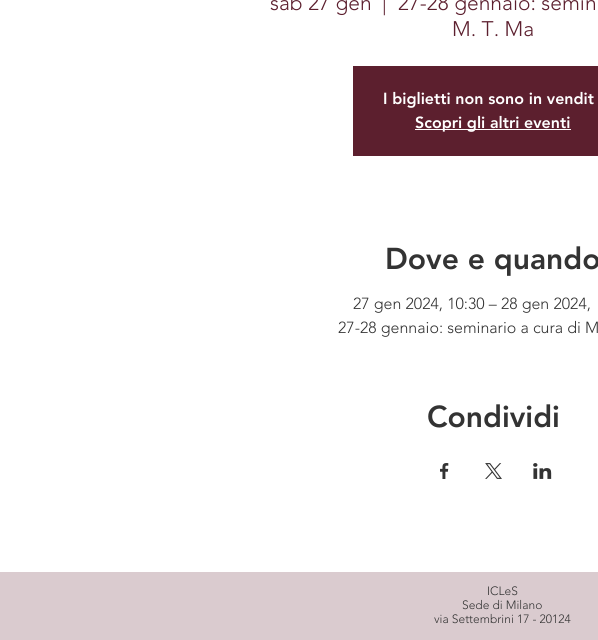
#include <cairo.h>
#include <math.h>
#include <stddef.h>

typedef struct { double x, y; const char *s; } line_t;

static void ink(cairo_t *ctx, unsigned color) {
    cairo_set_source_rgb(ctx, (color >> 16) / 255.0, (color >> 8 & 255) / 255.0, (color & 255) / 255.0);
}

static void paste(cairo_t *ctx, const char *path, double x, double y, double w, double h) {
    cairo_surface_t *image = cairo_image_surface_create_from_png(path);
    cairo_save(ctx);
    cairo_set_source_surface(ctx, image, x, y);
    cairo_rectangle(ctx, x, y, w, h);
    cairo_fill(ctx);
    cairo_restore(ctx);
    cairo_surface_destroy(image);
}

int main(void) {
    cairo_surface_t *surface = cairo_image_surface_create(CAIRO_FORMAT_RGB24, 598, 640);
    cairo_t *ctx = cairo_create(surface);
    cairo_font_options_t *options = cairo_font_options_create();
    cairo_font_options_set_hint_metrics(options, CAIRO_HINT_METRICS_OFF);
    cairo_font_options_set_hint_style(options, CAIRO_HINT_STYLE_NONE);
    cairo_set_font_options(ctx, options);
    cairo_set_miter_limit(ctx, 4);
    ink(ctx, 0xFFFFFF);
    cairo_paint(ctx);
    cairo_select_font_face(ctx, "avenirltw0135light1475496 Light", CAIRO_FONT_SLANT_NORMAL, CAIRO_FONT_WEIGHT_NORMAL);
    cairo_set_font_size(ctx, 21);
    ink(ctx, 0x5C1F2E);
    {
        static const line_t items[] = {
            {270, 10, "sab 27 gen"},
            {382, 10, "|"},
            {398, 10, "27-28 gennaio: semin"},
            {452, 36, "M. T. Ma"},
        };
        for (size_t i = 0; i < sizeof items / sizeof *items; i++) {
            cairo_move_to(ctx, items[i].x, items[i].y);
            cairo_show_text(ctx, items[i].s);
        }
    }
    cairo_rectangle(ctx, 353, 66, 245, 90);
    cairo_fill(ctx);
    cairo_select_font_face(ctx, "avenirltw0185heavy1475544 Black", CAIRO_FONT_SLANT_NORMAL, CAIRO_FONT_WEIGHT_NORMAL);
    cairo_set_font_size(ctx, 16);
    ink(ctx, 0xFFFFFF);
    cairo_move_to(ctx, 383, 104);
    cairo_show_text(ctx, "I biglietti non sono in vendit");
    cairo_rectangle(ctx, 415, 129, 156, 1);
    cairo_fill(ctx);
    cairo_move_to(ctx, 415, 128);
    cairo_show_text(ctx, "Scopri gli altri eventi");
    cairo_set_font_size(ctx, 30);
    ink(ctx, 0x333333);
    cairo_move_to(ctx, 385, 269);
    cairo_show_text(ctx, "Dove e quando");
    cairo_select_font_face(ctx, "avenirltw0135light1475496 Light", CAIRO_FONT_SLANT_NORMAL, CAIRO_FONT_WEIGHT_NORMAL);
    cairo_set_font_size(ctx, 16);
    cairo_move_to(ctx, 353, 309);
    cairo_show_text(ctx, "27 gen 2024, 10:30 – 28 gen 2024,");
    cairo_move_to(ctx, 338, 333);
    cairo_show_text(ctx, "27-28 gennaio: seminario a cura di M");
    cairo_select_font_face(ctx, "avenirltw0185heavy1475544 Black", CAIRO_FONT_SLANT_NORMAL, CAIRO_FONT_WEIGHT_NORMAL);
    cairo_set_font_size(ctx, 30);
    cairo_move_to(ctx, 427, 427);
    cairo_show_text(ctx, "Condividi");
    paste(ctx, "media/1.png", 440, 463, 9, 16);
    paste(ctx, "media/2.png", 485, 463, 17, 16);
    paste(ctx, "media/3.png", 533, 463, 19, 16);
    ink(ctx, 0xDACBCF);
    cairo_rectangle(ctx, 0, 572, 598, 68);
    cairo_fill(ctx);
    cairo_select_font_face(ctx, "avenirltw0135light1475496 Light", CAIRO_FONT_SLANT_NORMAL, CAIRO_FONT_WEIGHT_NORMAL);
    cairo_set_font_size(ctx, 12);
    ink(ctx, 0x333333);
    {
        static const line_t items[] = {
            {487, 595, "ICLeS"},
            {462, 609, "Sede di Milano"},
            {434, 623, "via Settembrini 17 - 20124"},
        };
        for (size_t i = 0; i < sizeof items / sizeof *items; i++) {
            cairo_move_to(ctx, items[i].x, items[i].y);
            cairo_show_text(ctx, items[i].s);
        }
    }
    cairo_surface_write_to_png(surface, "image.png");
    cairo_font_options_destroy(options);
    cairo_destroy(ctx);
    cairo_surface_destroy(surface);
    return 0;
}
